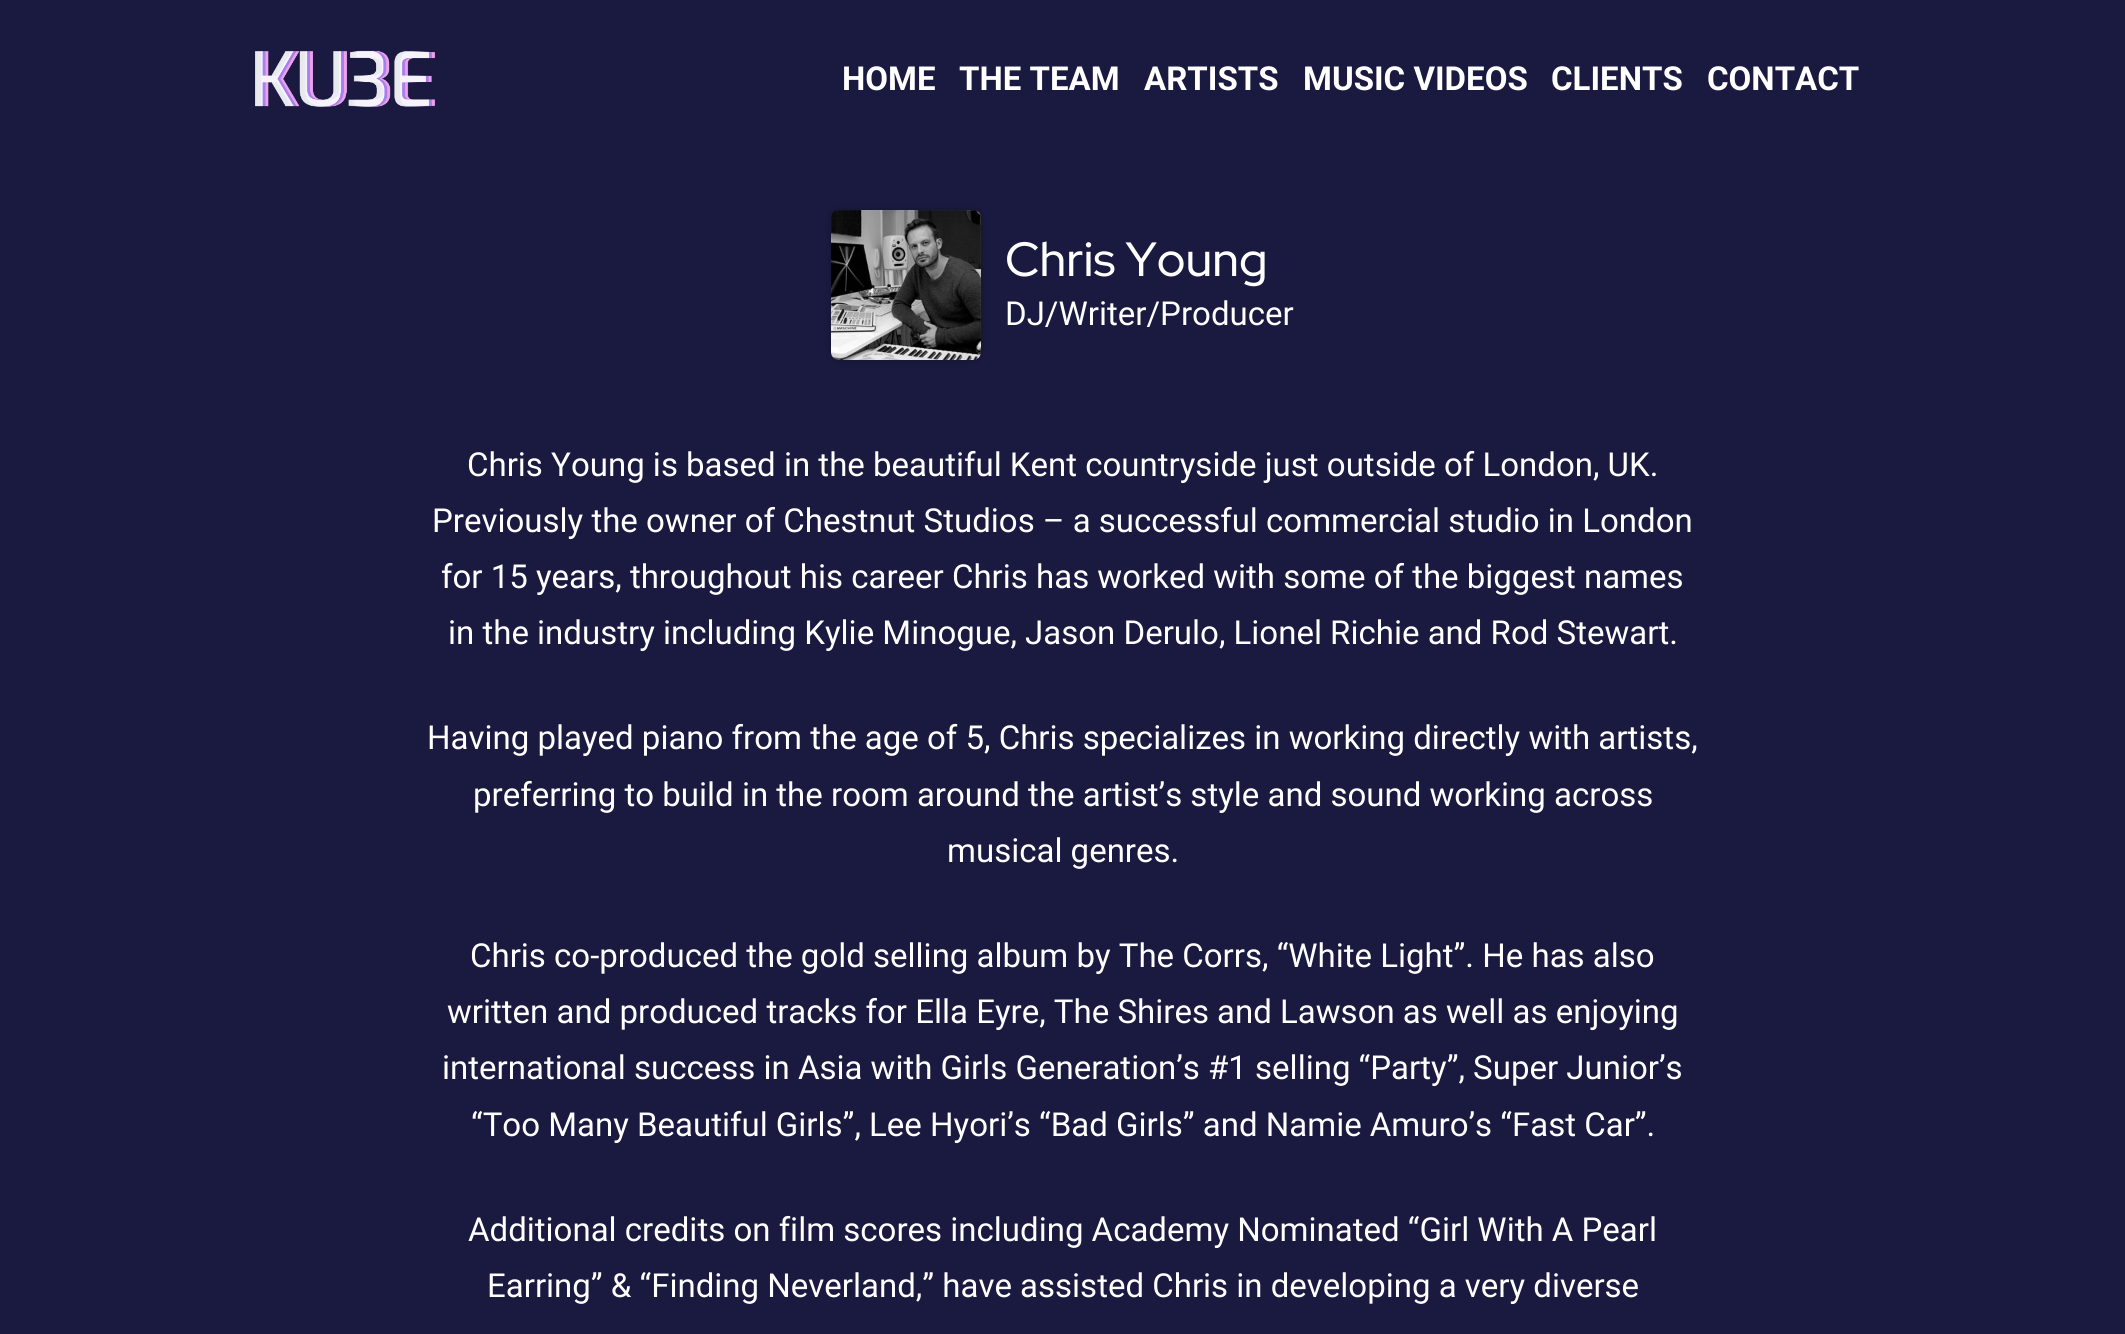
#include <cairo.h>
#include <math.h>
#include <stddef.h>

typedef struct { double x, y; const char *s; } line_t;

static void ink(cairo_t *ctx, unsigned color) {
    cairo_set_source_rgb(ctx, (color >> 16) / 255.0, (color >> 8 & 255) / 255.0, (color & 255) / 255.0);
}

static void round_path(cairo_t *ctx, double x, double y, double w, double h, double r) {
    cairo_new_sub_path(ctx);
    cairo_arc(ctx, x + w - r, y + h - r, r, 0, M_PI / 2);
    cairo_arc(ctx, x + r, y + h - r, r, M_PI / 2, M_PI);
    cairo_arc(ctx, x + r, y + r, r, M_PI, 1.5 * M_PI);
    cairo_arc(ctx, x + w - r, y + r, r, 1.5 * M_PI, 2 * M_PI);
    cairo_close_path(ctx);
}

static void blur_box(cairo_t *ctx, double x, double y, double w, double h, double r, double blur, double alpha) {
    cairo_push_group_with_content(ctx, CAIRO_CONTENT_ALPHA);
    cairo_set_operator(ctx, CAIRO_OPERATOR_SOURCE);
    for (int i = 15; i >= -15 && fmin(w, h) + blur * i / 3 > 0; i -= 2) {
        double e = blur * i / 6;
        cairo_set_source_rgba(ctx, 0, 0, 0, alpha * erfc((i - 1) / 8.5) / 2);
        round_path(ctx, x - e, y - e, w + 2 * e, h + 2 * e, fmax(0, fmin(r + e + blur * .6, fmin(w, h) / 2 + e)));
        cairo_fill(ctx);
    }
    cairo_pattern_t *soft = cairo_pop_group(ctx);
    cairo_mask(ctx, soft);
    cairo_pattern_destroy(soft);
}

static void paste(cairo_t *ctx, const char *path, double x, double y, double w, double h) {
    cairo_surface_t *image = cairo_image_surface_create_from_png(path);
    cairo_save(ctx);
    cairo_set_source_surface(ctx, image, x, y);
    cairo_rectangle(ctx, x, y, w, h);
    cairo_fill(ctx);
    cairo_restore(ctx);
    cairo_surface_destroy(image);
}

int main(void) {
    cairo_surface_t *surface = cairo_image_surface_create(CAIRO_FORMAT_RGB24, 2125, 1334);
    cairo_t *ctx = cairo_create(surface);
    cairo_font_options_t *options = cairo_font_options_create();
    cairo_font_options_set_hint_metrics(options, CAIRO_HINT_METRICS_OFF);
    cairo_font_options_set_hint_style(options, CAIRO_HINT_STYLE_NONE);
    cairo_set_font_options(ctx, options);
    cairo_set_miter_limit(ctx, 4);
    ink(ctx, 0x1A1A41);
    cairo_paint(ctx);
    paste(ctx, "media/1.png", 255, 50, 180, 57);
    cairo_select_font_face(ctx, "Roboto", CAIRO_FONT_SLANT_NORMAL, CAIRO_FONT_WEIGHT_BOLD);
    cairo_set_font_size(ctx, 33);
    ink(ctx, 0xFFFFFF);
    {
        static const line_t items[] = {
            {842, 90, "HOME"},
            {959, 90, "THE TEAM"},
            {1144, 90, "ARTISTS"},
            {1303, 90, "MUSIC VIDEOS"},
            {1551, 90, "CLIENTS"},
            {1707, 90, "CONTACT"},
        };
        for (size_t i = 0; i < sizeof items / sizeof *items; i++) {
            cairo_move_to(ctx, items[i].x, items[i].y);
            cairo_show_text(ctx, items[i].s);
        }
    }
    ink(ctx, 0x000000);
    blur_box(ctx, 831, 210, 150, 150, 8, 4, 0.3);
    paste(ctx, "media/2.png", 831, 210, 150, 150);
    cairo_select_font_face(ctx, "Red Hat Display Medium", CAIRO_FONT_SLANT_NORMAL, CAIRO_FONT_WEIGHT_NORMAL);
    cairo_set_font_size(ctx, 48);
    ink(ctx, 0xFFFFFF);
    cairo_move_to(ctx, 1005, 276);
    cairo_show_text(ctx, "Chris Young");
    cairo_select_font_face(ctx, "Roboto", CAIRO_FONT_SLANT_NORMAL, CAIRO_FONT_WEIGHT_NORMAL);
    cairo_set_font_size(ctx, 33);
    {
        static const line_t items[] = {
            {1005, 325, "DJ/Writer/Producer"},
            {467, 476, "Chris Young is based in the beautiful Kent countryside just outside of London, UK."},
            {432, 532, "Previously the owner of Chestnut Studios – a successful commercial studio in London"},
            {441, 588, "for 15 years, throughout his career Chris has worked with some of the biggest names"},
            {448, 644, "in the industry including Kylie Minogue, Jason Derulo, Lionel Richie and Rod Stewart."},
            {427, 749, "Having played piano from the age of 5, Chris specializes in working directly with artists,"},
            {473, 806, "preferring to build in the room around the artist’s style and sound working across"},
            {947, 862, "musical genres."},
            {470, 967, "Chris co-produced the gold selling album by The Corrs, “White Light”. He has also"},
            {447, 1023, "written and produced tracks for Ella Eyre, The Shires and Lawson as well as enjoying"},
            {442, 1079, "international success in Asia with Girls Generation’s #1 selling “Party”, Super Junior’s"},
            {471, 1136, "“Too Many Beautiful Girls”, Lee Hyori’s “Bad Girls” and Namie Amuro’s “Fast Car”."},
            {468, 1241, "Additional credits on film scores including Academy Nominated “Girl With A Pearl"},
            {487, 1297, "Earring” & “Finding Neverland,” have assisted Chris in developing a very diverse"},
        };
        for (size_t i = 0; i < sizeof items / sizeof *items; i++) {
            cairo_move_to(ctx, items[i].x, items[i].y);
            cairo_show_text(ctx, items[i].s);
        }
    }
    cairo_surface_write_to_png(surface, "image.png");
    cairo_font_options_destroy(options);
    cairo_destroy(ctx);
    cairo_surface_destroy(surface);
    return 0;
}
